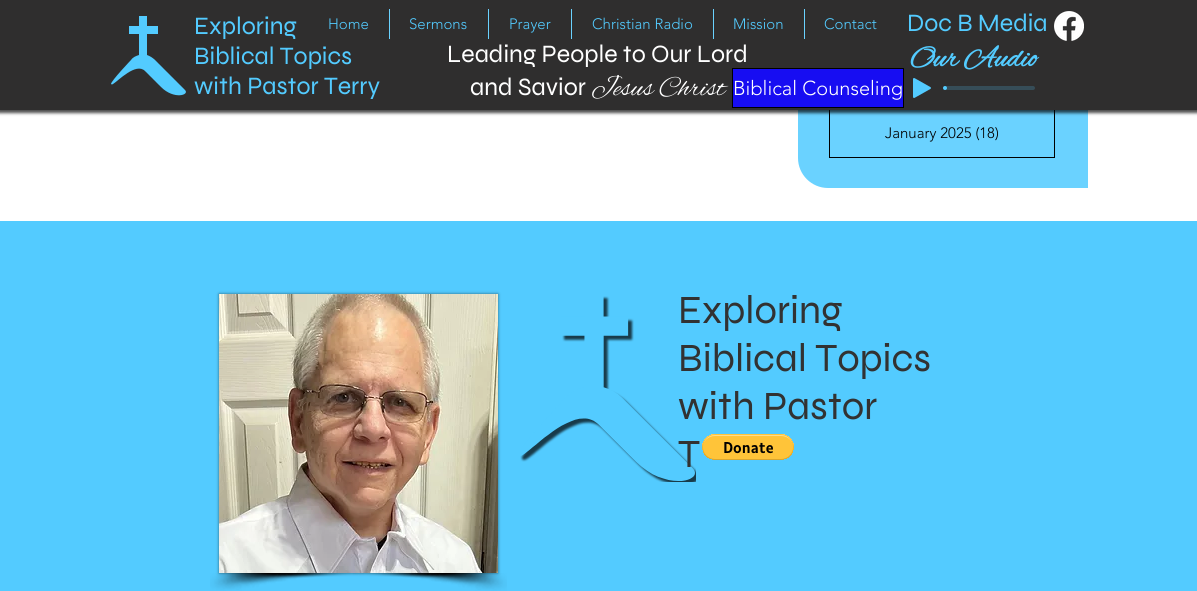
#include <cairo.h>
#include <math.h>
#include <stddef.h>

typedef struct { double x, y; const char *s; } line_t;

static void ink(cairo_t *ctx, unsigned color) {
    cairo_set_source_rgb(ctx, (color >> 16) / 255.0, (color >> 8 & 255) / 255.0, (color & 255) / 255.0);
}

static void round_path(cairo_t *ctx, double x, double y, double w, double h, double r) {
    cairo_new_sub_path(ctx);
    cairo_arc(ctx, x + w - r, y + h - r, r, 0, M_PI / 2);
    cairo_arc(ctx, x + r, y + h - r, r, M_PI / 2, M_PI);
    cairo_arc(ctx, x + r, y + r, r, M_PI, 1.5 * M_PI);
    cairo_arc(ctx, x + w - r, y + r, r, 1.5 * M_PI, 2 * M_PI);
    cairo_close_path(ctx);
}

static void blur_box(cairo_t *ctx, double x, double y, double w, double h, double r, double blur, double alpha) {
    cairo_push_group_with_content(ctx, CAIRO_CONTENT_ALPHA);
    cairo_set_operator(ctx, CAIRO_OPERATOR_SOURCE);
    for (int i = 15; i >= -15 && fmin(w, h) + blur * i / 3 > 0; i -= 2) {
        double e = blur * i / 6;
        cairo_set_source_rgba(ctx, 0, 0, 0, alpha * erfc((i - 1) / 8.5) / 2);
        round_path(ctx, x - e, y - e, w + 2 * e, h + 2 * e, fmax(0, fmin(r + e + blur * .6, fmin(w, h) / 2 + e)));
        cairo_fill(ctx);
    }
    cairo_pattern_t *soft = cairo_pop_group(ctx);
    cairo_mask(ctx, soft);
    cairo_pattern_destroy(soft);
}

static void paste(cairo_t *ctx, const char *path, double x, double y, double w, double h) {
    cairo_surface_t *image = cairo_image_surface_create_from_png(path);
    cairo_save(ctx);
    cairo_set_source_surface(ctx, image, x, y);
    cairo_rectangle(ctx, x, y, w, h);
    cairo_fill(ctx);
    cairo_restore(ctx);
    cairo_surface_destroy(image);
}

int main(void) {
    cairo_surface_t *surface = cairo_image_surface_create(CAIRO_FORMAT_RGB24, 1197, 591);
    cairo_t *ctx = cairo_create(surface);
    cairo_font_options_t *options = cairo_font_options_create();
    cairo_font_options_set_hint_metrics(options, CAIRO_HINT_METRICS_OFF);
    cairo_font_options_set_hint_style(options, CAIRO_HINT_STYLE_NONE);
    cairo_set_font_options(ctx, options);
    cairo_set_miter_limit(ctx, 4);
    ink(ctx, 0xFFFFFF);
    cairo_paint(ctx);
    ink(ctx, 0x6AD2FF);
    cairo_new_path(ctx);
    cairo_move_to(ctx, 798, -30);
    cairo_line_to(ctx, 1058, -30);
    cairo_curve_to(ctx, 1074.5, -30, 1088, -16.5, 1088, 0);
    cairo_line_to(ctx, 1088, 188);
    cairo_line_to(ctx, 828, 188);
    cairo_curve_to(ctx, 811.5, 188, 798, 174.5, 798, 158);
    cairo_close_path(ctx);
    cairo_fill(ctx);
    cairo_rectangle(ctx, 829.5, -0.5, 225, 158);
    ink(ctx, 0x000000);
    cairo_set_line_width(ctx, 1);
    cairo_stroke(ctx);
    ink(ctx, 0x000000);
    blur_box(ctx, -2, -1, 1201, 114, 0, 1.5, 0.7);
    ink(ctx, 0x2F2E2E);
    cairo_rectangle(ctx, 0, 0, 1197, 110);
    cairo_fill(ctx);
    ink(ctx, 0x53CBFF);
    cairo_new_path(ctx);
    cairo_move_to(ctx, 185, 90);
    cairo_line_to(ctx, 155, 60);
    cairo_curve_to(ctx, 153, 58, 150, 56, 147, 55);
    cairo_line_to(ctx, 147, 34);
    cairo_line_to(ctx, 158, 34);
    cairo_line_to(ctx, 158, 26);
    cairo_line_to(ctx, 147, 26);
    cairo_line_to(ctx, 147, 16);
    cairo_line_to(ctx, 139, 16);
    cairo_line_to(ctx, 139, 26);
    cairo_line_to(ctx, 129, 26);
    cairo_line_to(ctx, 129, 34);
    cairo_line_to(ctx, 139, 34);
    cairo_line_to(ctx, 139, 55);
    cairo_curve_to(ctx, 136, 56, 133, 57, 131, 60);
    cairo_curve_to(ctx, 131, 60, 111, 81, 111, 84);
    cairo_curve_to(ctx, 111, 84, 112, 85, 113, 84);
    cairo_curve_to(ctx, 118, 81, 136, 62, 145, 71);
    cairo_line_to(ctx, 161, 87);
    cairo_curve_to(ctx, 174, 100, 190, 95, 185, 90);
    cairo_close_path(ctx);
    cairo_fill(ctx);
    cairo_select_font_face(ctx, "Syne", CAIRO_FONT_SLANT_NORMAL, CAIRO_FONT_WEIGHT_NORMAL);
    cairo_set_font_size(ctx, 25);
    {
        static const line_t items[] = {
            {194, 34, "Exploring"},
            {194, 64, "Biblical Topics"},
            {194, 94, "with Pastor Terry"},
        };
        for (size_t i = 0; i < sizeof items / sizeof *items; i++) {
            cairo_move_to(ctx, items[i].x, items[i].y);
            cairo_show_text(ctx, items[i].s);
        }
    }
    cairo_select_font_face(ctx, "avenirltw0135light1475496 Light", CAIRO_FONT_SLANT_NORMAL, CAIRO_FONT_WEIGHT_NORMAL);
    cairo_set_font_size(ctx, 15);
    cairo_move_to(ctx, 328, 29);
    cairo_show_text(ctx, "Home");
    ink(ctx, 0x6AD2FF);
    cairo_rectangle(ctx, 389, 9, 1, 30);
    cairo_fill(ctx);
    ink(ctx, 0x53CBFF);
    cairo_move_to(ctx, 409, 29);
    cairo_show_text(ctx, "Sermons");
    ink(ctx, 0x6AD2FF);
    cairo_rectangle(ctx, 488, 9, 1, 30);
    cairo_fill(ctx);
    ink(ctx, 0x53CBFF);
    cairo_move_to(ctx, 509, 29);
    cairo_show_text(ctx, "Prayer");
    ink(ctx, 0x6AD2FF);
    cairo_rectangle(ctx, 571, 9, 1, 30);
    cairo_fill(ctx);
    ink(ctx, 0x53CBFF);
    cairo_move_to(ctx, 592, 29);
    cairo_show_text(ctx, "Christian Radio");
    ink(ctx, 0x6AD2FF);
    cairo_rectangle(ctx, 713, 9, 1, 30);
    cairo_fill(ctx);
    ink(ctx, 0x53CBFF);
    cairo_move_to(ctx, 733, 29);
    cairo_show_text(ctx, "Mission");
    ink(ctx, 0x6AD2FF);
    cairo_rectangle(ctx, 804, 9, 1, 30);
    cairo_fill(ctx);
    ink(ctx, 0x53CBFF);
    cairo_move_to(ctx, 824, 29);
    cairo_show_text(ctx, "Contact");
    cairo_select_font_face(ctx, "Syne", CAIRO_FONT_SLANT_NORMAL, CAIRO_FONT_WEIGHT_NORMAL);
    cairo_set_font_size(ctx, 25);
    cairo_move_to(ctx, 907, 31);
    cairo_show_text(ctx, "Doc B Media");
    paste(ctx, "media/1.png", 1054, 11, 30, 30);
    cairo_select_font_face(ctx, "Alex Brush", CAIRO_FONT_SLANT_NORMAL, CAIRO_FONT_WEIGHT_BOLD);
    cairo_set_font_size(ctx, 30);
    cairo_move_to(ctx, 910, 66);
    cairo_show_text(ctx, "Our Audio");
    paste(ctx, "media/2.png", 913, 78, 18, 20);
    ink(ctx, 0x364D58);
    round_path(ctx, 945, 86, 90, 4, 2);
    cairo_fill(ctx);
    ink(ctx, 0x53CBFF);
    cairo_arc(ctx, 945, 88, 2, 0, 2 * M_PI);
    cairo_fill(ctx);
    cairo_select_font_face(ctx, "Syne", CAIRO_FONT_SLANT_NORMAL, CAIRO_FONT_WEIGHT_NORMAL);
    cairo_set_font_size(ctx, 25);
    ink(ctx, 0xFFFFFF);
    cairo_move_to(ctx, 447, 62);
    cairo_show_text(ctx, "Leading People to Our Lord");
    cairo_move_to(ctx, 470, 95);
    cairo_show_text(ctx, "and Savior");
    cairo_select_font_face(ctx, "Alex Brush", CAIRO_FONT_SLANT_NORMAL, CAIRO_FONT_WEIGHT_NORMAL);
    cairo_set_font_size(ctx, 28);
    cairo_move_to(ctx, 591, 95);
    cairo_show_text(ctx, "Jesus Christ");
    ink(ctx, 0x170DF2);
    cairo_rectangle(ctx, 732.5, 68.5, 171, 39);
    cairo_fill_preserve(ctx);
    ink(ctx, 0x000000);
    cairo_stroke(ctx);
    cairo_select_font_face(ctx, "avenirltw0135light1475496 Light", CAIRO_FONT_SLANT_NORMAL, CAIRO_FONT_WEIGHT_NORMAL);
    cairo_set_font_size(ctx, 20);
    ink(ctx, 0xFFFFFF);
    cairo_move_to(ctx, 733, 95);
    cairo_show_text(ctx, "Biblical Counseling");
    cairo_set_font_size(ctx, 15);
    ink(ctx, 0x000000);
    cairo_move_to(ctx, 885, 138);
    cairo_show_text(ctx, "January 2025 (18)");
    ink(ctx, 0x53CBFF);
    cairo_rectangle(ctx, 0, 221, 1197, 370);
    cairo_fill(ctx);
    ink(ctx, 0x000000);
    blur_box(ctx, 219, 294, 279, 279, 0, 1.5, 0.5);
    paste(ctx, "media/3.png", 219, 294, 279, 279);
    paste(ctx, "media/4.png", 210, 573, 154, 18);
    paste(ctx, "media/5.png", 353, 573, 154, 18);
    paste(ctx, "media/6.png", 520, 296, 176, 186);
    cairo_select_font_face(ctx, "Syne", CAIRO_FONT_SLANT_NORMAL, CAIRO_FONT_WEIGHT_NORMAL);
    cairo_set_font_size(ctx, 40);
    ink(ctx, 0x323232);
    {
        static const line_t items[] = {
            {678, 323, "Exploring"},
            {678, 371, "Biblical Topics"},
            {678, 419, "with Pastor"},
            {678, 467, "T"},
        };
        for (size_t i = 0; i < sizeof items / sizeof *items; i++) {
            cairo_move_to(ctx, items[i].x, items[i].y);
            cairo_show_text(ctx, items[i].s);
        }
    }
    paste(ctx, "media/7.png", 702, 434, 92, 26);
    cairo_surface_write_to_png(surface, "image.png");
    cairo_font_options_destroy(options);
    cairo_destroy(ctx);
    cairo_surface_destroy(surface);
    return 0;
}
